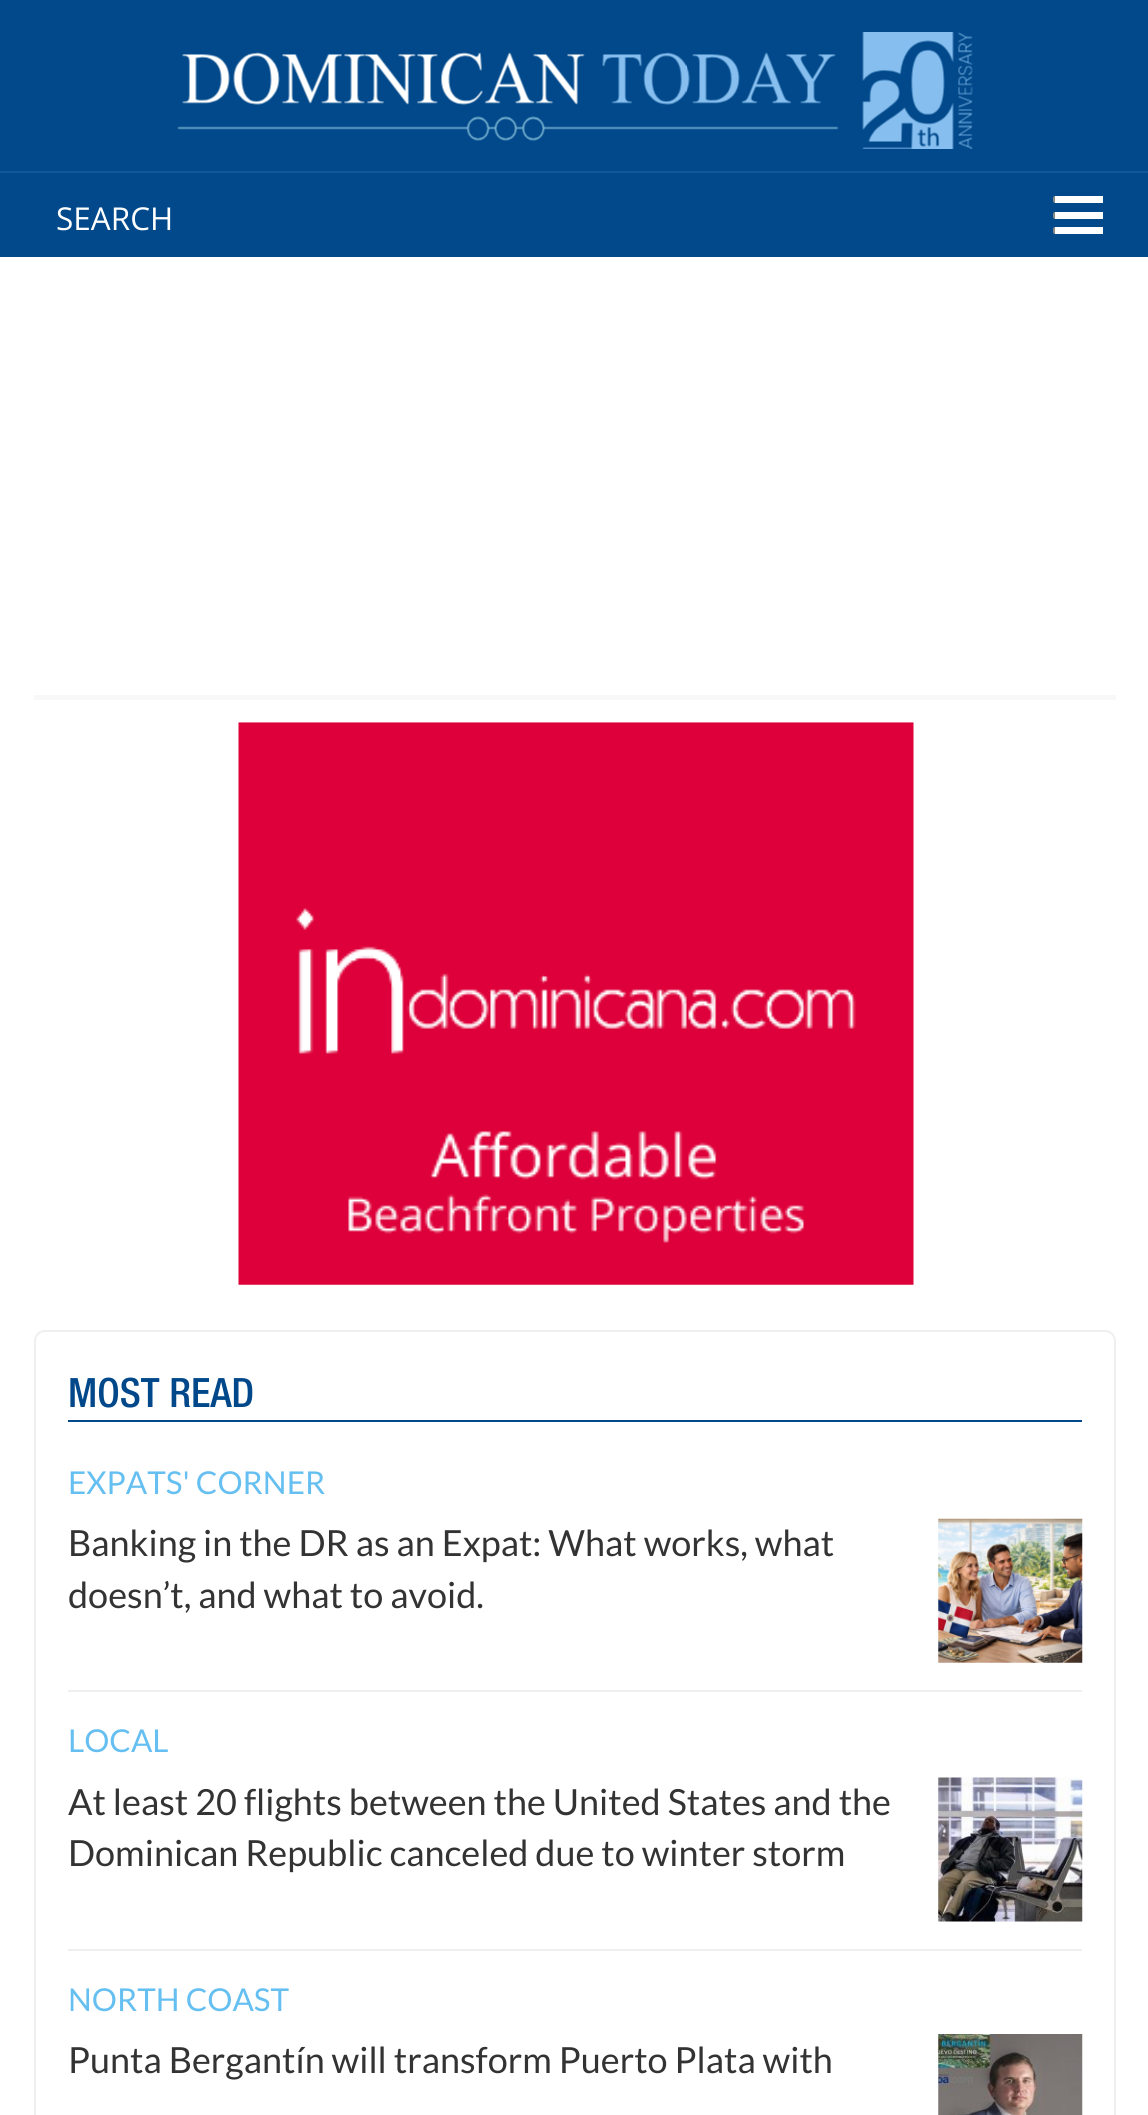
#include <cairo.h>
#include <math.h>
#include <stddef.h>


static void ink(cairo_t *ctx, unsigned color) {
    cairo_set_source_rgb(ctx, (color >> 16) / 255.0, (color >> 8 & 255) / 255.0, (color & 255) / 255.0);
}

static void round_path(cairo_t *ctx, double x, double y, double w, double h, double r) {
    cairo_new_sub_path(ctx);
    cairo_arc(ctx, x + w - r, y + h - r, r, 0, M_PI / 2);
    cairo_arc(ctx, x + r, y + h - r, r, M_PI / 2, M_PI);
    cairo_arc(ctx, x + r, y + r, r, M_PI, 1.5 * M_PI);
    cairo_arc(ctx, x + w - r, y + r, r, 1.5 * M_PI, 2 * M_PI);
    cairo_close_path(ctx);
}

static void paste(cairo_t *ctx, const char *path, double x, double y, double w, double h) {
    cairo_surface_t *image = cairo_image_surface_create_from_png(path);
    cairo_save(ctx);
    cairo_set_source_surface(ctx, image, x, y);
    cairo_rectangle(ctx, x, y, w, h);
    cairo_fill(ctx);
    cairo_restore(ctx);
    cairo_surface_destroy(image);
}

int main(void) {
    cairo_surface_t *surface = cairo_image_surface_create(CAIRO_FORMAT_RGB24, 1148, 2115);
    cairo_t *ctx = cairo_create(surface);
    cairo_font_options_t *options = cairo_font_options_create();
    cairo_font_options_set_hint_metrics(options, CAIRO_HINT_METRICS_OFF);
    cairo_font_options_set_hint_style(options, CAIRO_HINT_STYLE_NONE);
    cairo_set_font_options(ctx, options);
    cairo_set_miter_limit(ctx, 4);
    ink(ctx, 0xFFFFFF);
    cairo_paint(ctx);
    ink(ctx, 0x01498A);
    cairo_rectangle(ctx, 0, 0, 1148, 257);
    cairo_fill(ctx);
    paste(ctx, "media/1.png", 177, 32, 796, 117);
    ink(ctx, 0x0F599A);
    cairo_rectangle(ctx, 0, 171, 1148, 2);
    cairo_fill(ctx);
    cairo_select_font_face(ctx, "Open Sans", CAIRO_FONT_SLANT_NORMAL, CAIRO_FONT_WEIGHT_NORMAL);
    cairo_set_font_size(ctx, 31.5);
    ink(ctx, 0xFFFFFF);
    cairo_move_to(ctx, 56, 230);
    cairo_show_text(ctx, "SEARCH");
    ink(ctx, 0x888888);
    round_path(ctx, 1053, 196, 50, 7, 2);
    cairo_fill(ctx);
    ink(ctx, 0xFFFFFF);
    cairo_rectangle(ctx, 1055, 196, 48, 7);
    cairo_fill(ctx);
    ink(ctx, 0x888888);
    round_path(ctx, 1053, 212, 50, 7, 2);
    cairo_fill(ctx);
    ink(ctx, 0xFFFFFF);
    cairo_rectangle(ctx, 1055, 212, 48, 7);
    cairo_fill(ctx);
    ink(ctx, 0x888888);
    round_path(ctx, 1053, 227, 50, 7, 2);
    cairo_fill(ctx);
    ink(ctx, 0xFFFFFF);
    cairo_rectangle(ctx, 1055, 227, 48, 7);
    cairo_fill(ctx);
    ink(ctx, 0xF8F8F8);
    cairo_rectangle(ctx, 34, 695, 1082, 5);
    cairo_fill(ctx);
    paste(ctx, "media/2.png", 238, 722, 676, 563);
    round_path(ctx, 35, 1331, 1080, 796, 10);
    ink(ctx, 0xEFEFEF);
    cairo_stroke(ctx);
    ink(ctx, 0x01498A);
    cairo_rectangle(ctx, 68, 1420, 1014, 2);
    cairo_fill(ctx);
    cairo_select_font_face(ctx, "Helvetica Neue Medium", CAIRO_FONT_SLANT_NORMAL, CAIRO_FONT_WEIGHT_NORMAL);
    cairo_set_font_size(ctx, 40.5);
    ink(ctx, 0x00488A);
    cairo_move_to(ctx, 68, 1407);
    cairo_show_text(ctx, "MOST READ");
    ink(ctx, 0xEFEFEF);
    cairo_rectangle(ctx, 68, 1690, 1014, 2);
    cairo_fill(ctx);
    cairo_select_font_face(ctx, "Lato", CAIRO_FONT_SLANT_NORMAL, CAIRO_FONT_WEIGHT_NORMAL);
    cairo_set_font_size(ctx, 31.5);
    ink(ctx, 0x65BFF1);
    cairo_move_to(ctx, 68, 1494);
    cairo_show_text(ctx, "EXPATS' CORNER");
    cairo_set_font_size(ctx, 36);
    ink(ctx, 0x333333);
    cairo_move_to(ctx, 68, 1556);
    cairo_show_text(ctx, "Banking in the DR as an Expat: What works, what");
    paste(ctx, "media/3.png", 938, 1518, 145, 145);
    cairo_move_to(ctx, 68, 1608);
    cairo_show_text(ctx, "doesn’t, and what to avoid.");
    ink(ctx, 0xEFEFEF);
    cairo_rectangle(ctx, 68, 1949, 1014, 2);
    cairo_fill(ctx);
    cairo_set_font_size(ctx, 31.5);
    ink(ctx, 0x65BFF1);
    cairo_move_to(ctx, 68, 1752);
    cairo_show_text(ctx, "LOCAL");
    cairo_set_font_size(ctx, 36);
    ink(ctx, 0x333333);
    cairo_move_to(ctx, 68, 1815);
    cairo_show_text(ctx, "At least 20 flights between the United States and the");
    paste(ctx, "media/4.png", 938, 1777, 145, 145);
    cairo_move_to(ctx, 68, 1866);
    cairo_show_text(ctx, "Dominican Republic canceled due to winter storm");
    cairo_set_font_size(ctx, 31.5);
    ink(ctx, 0x65BFF1);
    cairo_move_to(ctx, 68, 2011);
    cairo_show_text(ctx, "NORTH COAST");
    cairo_set_font_size(ctx, 36);
    ink(ctx, 0x333333);
    cairo_move_to(ctx, 68, 2073);
    cairo_show_text(ctx, "Punta Bergantín will transform Puerto Plata with");
    paste(ctx, "media/5.png", 938, 2034, 145, 81);
    cairo_surface_write_to_png(surface, "image.png");
    cairo_font_options_destroy(options);
    cairo_destroy(ctx);
    cairo_surface_destroy(surface);
    return 0;
}
